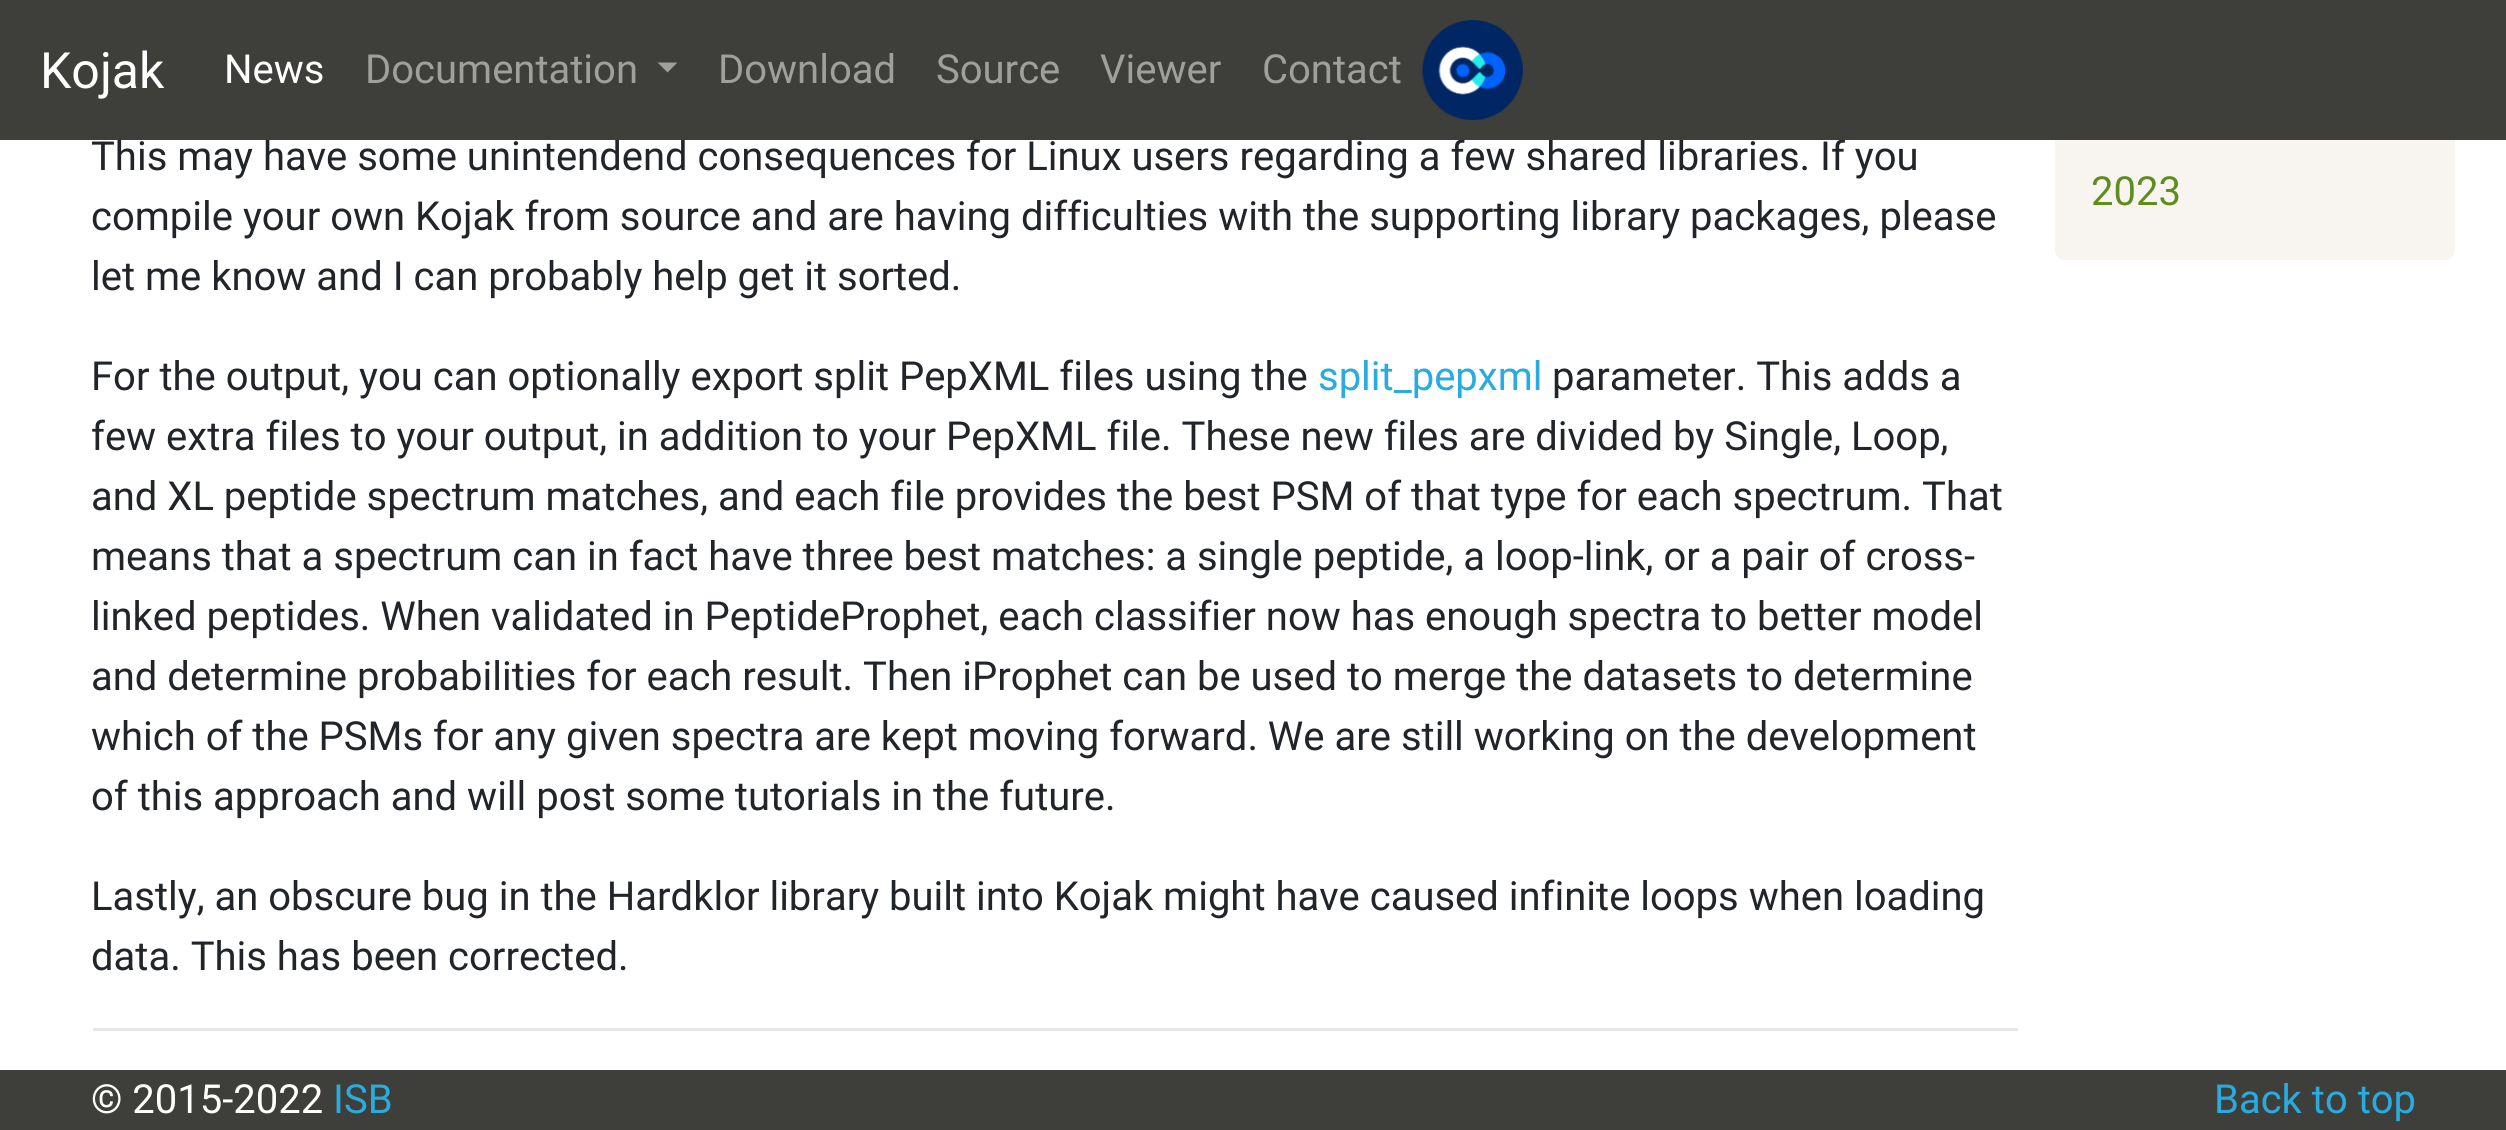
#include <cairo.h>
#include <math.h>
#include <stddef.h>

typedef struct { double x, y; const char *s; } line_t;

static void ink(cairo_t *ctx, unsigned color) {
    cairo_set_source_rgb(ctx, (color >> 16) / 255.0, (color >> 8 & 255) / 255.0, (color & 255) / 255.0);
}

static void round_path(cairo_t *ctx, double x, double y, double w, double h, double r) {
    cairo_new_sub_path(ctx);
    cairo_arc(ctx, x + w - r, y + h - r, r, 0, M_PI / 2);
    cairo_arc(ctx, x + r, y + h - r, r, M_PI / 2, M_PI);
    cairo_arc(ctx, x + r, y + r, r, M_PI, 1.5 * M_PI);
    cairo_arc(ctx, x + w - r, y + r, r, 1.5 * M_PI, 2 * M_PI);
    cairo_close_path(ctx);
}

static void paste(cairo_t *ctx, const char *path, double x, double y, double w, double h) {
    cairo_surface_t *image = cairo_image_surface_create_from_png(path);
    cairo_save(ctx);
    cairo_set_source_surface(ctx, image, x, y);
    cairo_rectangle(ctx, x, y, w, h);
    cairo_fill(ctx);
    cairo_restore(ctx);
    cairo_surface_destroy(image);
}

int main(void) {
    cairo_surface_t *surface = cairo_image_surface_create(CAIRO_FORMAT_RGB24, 2506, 1130);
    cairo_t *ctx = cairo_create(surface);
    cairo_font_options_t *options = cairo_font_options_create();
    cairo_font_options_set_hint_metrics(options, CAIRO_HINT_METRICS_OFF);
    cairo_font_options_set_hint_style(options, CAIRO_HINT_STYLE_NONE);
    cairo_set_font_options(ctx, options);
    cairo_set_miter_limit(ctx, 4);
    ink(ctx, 0xFFFFFF);
    cairo_paint(ctx);
    cairo_select_font_face(ctx, "Roboto", CAIRO_FONT_SLANT_NORMAL, CAIRO_FONT_WEIGHT_NORMAL);
    cairo_set_font_size(ctx, 40);
    ink(ctx, 0x212529);
    cairo_move_to(ctx, 91, 170);
    cairo_show_text(ctx, "This may have some unintendend consequences for Linux users regarding a few shared libraries. If you");
    ink(ctx, 0xF8F5F0);
    round_path(ctx, 2055, -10, 400, 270, 10);
    cairo_fill(ctx);
    ink(ctx, 0x3E3F3A);
    cairo_rectangle(ctx, 0, 0, 2506, 140);
    cairo_fill(ctx);
    cairo_set_font_size(ctx, 50);
    ink(ctx, 0xFFFFFF);
    cairo_move_to(ctx, 40, 88);
    cairo_show_text(ctx, "Kojak");
    cairo_set_font_size(ctx, 40);
    cairo_move_to(ctx, 224, 83);
    cairo_show_text(ctx, "News");
    ink(ctx, 0x9F9F9D);
    cairo_move_to(ctx, 365, 83);
    cairo_show_text(ctx, "Documentation");
    cairo_new_path(ctx);
    cairo_move_to(ctx, 657.5, 62.5);
    cairo_line_to(ctx, 677.5, 62.5);
    cairo_line_to(ctx, 667.5, 72.5);
    cairo_close_path(ctx);
    cairo_fill(ctx);
    {
        static const line_t items[] = {
            {718, 83, "Download"},
            {936, 83, "Source"},
            {1100, 83, "Viewer"},
            {1262, 83, "Contact"},
        };
        for (size_t i = 0; i < sizeof items / sizeof *items; i++) {
            cairo_move_to(ctx, items[i].x, items[i].y);
            cairo_show_text(ctx, items[i].s);
        }
    }
    paste(ctx, "media/1.png", 1422, 20, 101, 100);
    ink(ctx, 0x212529);
    {
        static const line_t items[] = {
            {91, 230, "compile your own Kojak from source and are having difficulties with the supporting library packages, please"},
            {91, 290, "let me know and I can probably help get it sorted."},
            {91, 390, "For the output, you can optionally export split PepXML files using the"},
        };
        for (size_t i = 0; i < sizeof items / sizeof *items; i++) {
            cairo_move_to(ctx, items[i].x, items[i].y);
            cairo_show_text(ctx, items[i].s);
        }
    }
    ink(ctx, 0x29ABE0);
    cairo_move_to(ctx, 1318, 390);
    cairo_show_text(ctx, "split_pepxml");
    ink(ctx, 0x212529);
    {
        static const line_t items[] = {
            {1552, 390, "parameter. This adds a"},
            {91, 450, "few extra files to your output, in addition to your PepXML file. These new files are divided by Single, Loop,"},
            {91, 510, "and XL peptide spectrum matches, and each file provides the best PSM of that type for each spectrum. That"},
            {91, 570, "means that a spectrum can in fact have three best matches: a single peptide, a loop-link, or a pair of cross-"},
            {91, 630, "linked peptides. When validated in PeptideProphet, each classifier now has enough spectra to better model"},
            {91, 690, "and determine probabilities for each result. Then iProphet can be used to merge the datasets to determine"},
            {91, 750, "which of the PSMs for any given spectra are kept moving forward. We are still working on the development"},
            {91, 810, "of this approach and will post some tutorials in the future."},
            {91, 910, "Lastly, an obscure bug in the Hardklor library built into Kojak might have caused infinite loops when loading"},
            {91, 970, "data. This has been corrected."},
        };
        for (size_t i = 0; i < sizeof items / sizeof *items; i++) {
            cairo_move_to(ctx, items[i].x, items[i].y);
            cairo_show_text(ctx, items[i].s);
        }
    }
    ink(ctx, 0xE6E6E6);
    cairo_rectangle(ctx, 93, 1028, 1925, 3);
    cairo_fill(ctx);
    ink(ctx, 0x5F8C1D);
    cairo_move_to(ctx, 2091, 205);
    cairo_show_text(ctx, "2023");
    ink(ctx, 0x3E3F3A);
    cairo_rectangle(ctx, 0, 1070, 2506, 60);
    cairo_fill(ctx);
    ink(ctx, 0xFFFFFF);
    cairo_move_to(ctx, 91, 1113);
    cairo_show_text(ctx, "© 2015-2022");
    ink(ctx, 0x29ABE0);
    cairo_move_to(ctx, 333, 1113);
    cairo_show_text(ctx, "ISB");
    cairo_move_to(ctx, 2214, 1113);
    cairo_show_text(ctx, "Back to top");
    cairo_surface_write_to_png(surface, "image.png");
    cairo_font_options_destroy(options);
    cairo_destroy(ctx);
    cairo_surface_destroy(surface);
    return 0;
}
